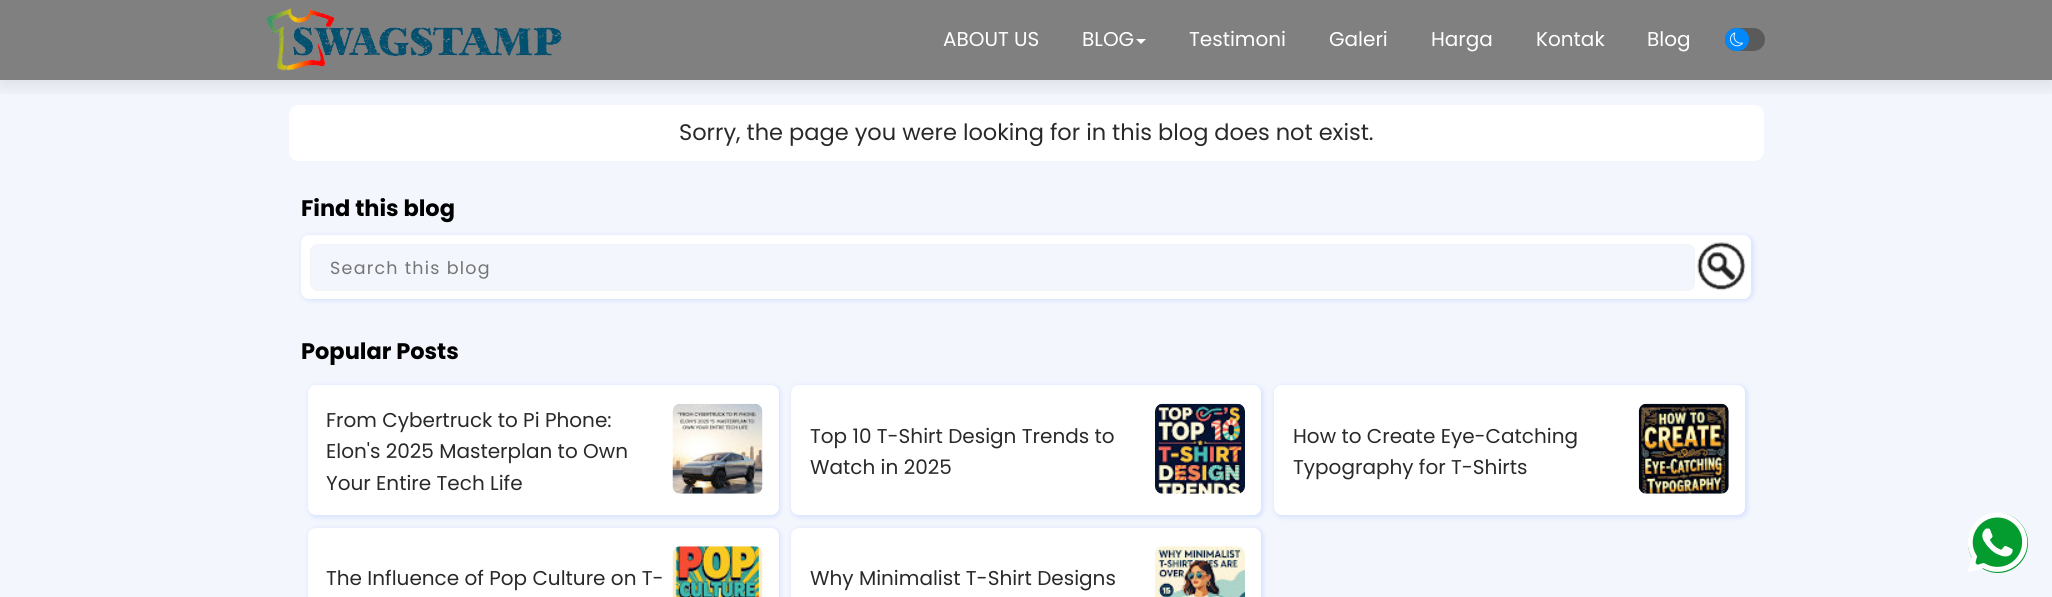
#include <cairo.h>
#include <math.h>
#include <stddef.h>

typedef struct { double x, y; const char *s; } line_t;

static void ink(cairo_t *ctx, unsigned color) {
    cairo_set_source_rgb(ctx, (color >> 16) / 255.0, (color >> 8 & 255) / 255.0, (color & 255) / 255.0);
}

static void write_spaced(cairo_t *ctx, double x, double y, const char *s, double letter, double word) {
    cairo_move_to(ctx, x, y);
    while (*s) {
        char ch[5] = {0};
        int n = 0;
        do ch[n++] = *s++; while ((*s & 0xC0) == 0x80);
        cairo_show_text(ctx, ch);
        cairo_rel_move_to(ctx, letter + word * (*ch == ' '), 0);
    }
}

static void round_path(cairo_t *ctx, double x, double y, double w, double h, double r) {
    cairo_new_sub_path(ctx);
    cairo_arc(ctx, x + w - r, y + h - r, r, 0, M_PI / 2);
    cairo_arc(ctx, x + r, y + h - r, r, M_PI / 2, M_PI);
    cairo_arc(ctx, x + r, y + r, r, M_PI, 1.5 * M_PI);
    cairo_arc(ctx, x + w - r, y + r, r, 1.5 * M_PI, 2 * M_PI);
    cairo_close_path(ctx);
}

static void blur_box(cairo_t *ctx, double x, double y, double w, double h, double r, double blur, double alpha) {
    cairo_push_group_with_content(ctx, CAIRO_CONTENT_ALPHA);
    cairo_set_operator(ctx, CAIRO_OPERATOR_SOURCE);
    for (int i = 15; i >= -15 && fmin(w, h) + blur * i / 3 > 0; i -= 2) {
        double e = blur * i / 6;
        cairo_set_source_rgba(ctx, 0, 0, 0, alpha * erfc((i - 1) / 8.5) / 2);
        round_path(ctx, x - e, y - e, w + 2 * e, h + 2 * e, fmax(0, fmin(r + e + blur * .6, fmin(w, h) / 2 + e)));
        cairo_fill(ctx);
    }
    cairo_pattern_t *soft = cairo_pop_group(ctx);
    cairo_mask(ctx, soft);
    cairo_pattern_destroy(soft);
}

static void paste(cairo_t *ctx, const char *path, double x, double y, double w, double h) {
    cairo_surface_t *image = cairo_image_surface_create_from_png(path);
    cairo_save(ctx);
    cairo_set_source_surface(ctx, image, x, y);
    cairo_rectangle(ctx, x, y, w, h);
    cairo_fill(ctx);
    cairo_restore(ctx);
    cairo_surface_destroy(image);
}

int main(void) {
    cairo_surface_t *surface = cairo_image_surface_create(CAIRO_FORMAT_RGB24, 2052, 597);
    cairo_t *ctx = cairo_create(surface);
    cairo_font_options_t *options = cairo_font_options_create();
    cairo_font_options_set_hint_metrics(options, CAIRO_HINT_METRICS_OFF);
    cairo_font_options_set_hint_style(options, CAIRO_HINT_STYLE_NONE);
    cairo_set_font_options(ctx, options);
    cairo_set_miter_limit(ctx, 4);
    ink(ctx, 0x808080);
    cairo_paint(ctx);
    ink(ctx, 0xF3F6FD);
    cairo_rectangle(ctx, 0, 80, 2052, 517);
    cairo_fill(ctx);
    ink(ctx, 0xFFFFFF);
    round_path(ctx, 289, 105, 1475, 56, 10);
    cairo_fill(ctx);
    cairo_save(ctx);
    cairo_rectangle(ctx, 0, 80, 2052, 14);
    cairo_clip(ctx);
    ink(ctx, 0x000000);
    blur_box(ctx, 0, 6, 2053, 80, 0, 9.5, 0.1);
    cairo_restore(ctx);
    paste(ctx, "media/1.png", 266, 8, 296, 63);
    cairo_select_font_face(ctx, "Poppins", CAIRO_FONT_SLANT_NORMAL, CAIRO_FONT_WEIGHT_NORMAL);
    cairo_set_font_size(ctx, 20);
    cairo_move_to(ctx, 943, 46);
    cairo_show_text(ctx, "ABOUT US");
    cairo_move_to(ctx, 1082, 46);
    cairo_show_text(ctx, "BLOG");
    cairo_new_path(ctx);
    cairo_move_to(ctx, 1136, 39);
    cairo_line_to(ctx, 1146, 39);
    cairo_line_to(ctx, 1141, 44);
    cairo_close_path(ctx);
    cairo_fill(ctx);
    {
        static const line_t items[] = {
            {1189, 46, "Testimoni"},
            {1329, 46, "Galeri"},
            {1431, 46, "Harga"},
            {1536, 46, "Kontak"},
            {1647, 46, "Blog"},
        };
        for (size_t i = 0; i < sizeof items / sizeof *items; i++) {
            cairo_move_to(ctx, items[i].x, items[i].y);
            cairo_show_text(ctx, items[i].s);
        }
    }
    cairo_set_font_size(ctx, 22.5);
    ink(ctx, 0x292929);
    cairo_move_to(ctx, 679, 140);
    cairo_show_text(ctx, "Sorry, the page you were looking for in this blog does not exist.");
    cairo_select_font_face(ctx, "Poppins", CAIRO_FONT_SLANT_NORMAL, CAIRO_FONT_WEIGHT_BOLD);
    ink(ctx, 0x000000);
    cairo_move_to(ctx, 301, 216);
    cairo_show_text(ctx, "Find this blog");
    ink(ctx, 0xDAE5FE);
    blur_box(ctx, 301, 235, 1453, 66, 9, 2, 1);
    ink(ctx, 0xFFFFFF);
    round_path(ctx, 301, 235, 1450, 64, 8);
    cairo_fill(ctx);
    ink(ctx, 0xF3F6FD);
    round_path(ctx, 310.5, 244.5, 1384, 46, 7.5);
    cairo_fill_preserve(ctx);
    ink(ctx, 0xF1F3F6);
    cairo_set_line_width(ctx, 1);
    cairo_stroke(ctx);
    cairo_select_font_face(ctx, "Poppins", CAIRO_FONT_SLANT_NORMAL, CAIRO_FONT_WEIGHT_NORMAL);
    cairo_set_font_size(ctx, 17.5);
    ink(ctx, 0x757575);
    write_spaced(ctx, 330, 274, "Search this blog", 1.25, 0);
    paste(ctx, "media/2.png", 1697, 242, 49, 49);
    cairo_select_font_face(ctx, "Poppins", CAIRO_FONT_SLANT_NORMAL, CAIRO_FONT_WEIGHT_BOLD);
    cairo_set_font_size(ctx, 22.5);
    ink(ctx, 0x000000);
    cairo_move_to(ctx, 301, 359);
    cairo_show_text(ctx, "Popular Posts");
    ink(ctx, 0xDAE5FE);
    blur_box(ctx, 308, 385, 473, 133, 9, 2, 1);
    ink(ctx, 0xFFFFFF);
    round_path(ctx, 308, 385, 471, 130, 8);
    cairo_fill(ctx);
    cairo_select_font_face(ctx, "Poppins", CAIRO_FONT_SLANT_NORMAL, CAIRO_FONT_WEIGHT_NORMAL);
    cairo_set_font_size(ctx, 20);
    ink(ctx, 0x292929);
    {
        static const line_t items[] = {
            {326, 427, "From Cybertruck to Pi Phone:"},
            {326, 458, "Elon's 2025 Masterplan to Own"},
            {326, 490, "Your Entire Tech Life"},
        };
        for (size_t i = 0; i < sizeof items / sizeof *items; i++) {
            cairo_move_to(ctx, items[i].x, items[i].y);
            cairo_show_text(ctx, items[i].s);
        }
    }
    paste(ctx, "media/3.png", 672, 403, 91, 91);
    ink(ctx, 0xDAE5FE);
    blur_box(ctx, 791, 385, 473, 133, 9, 2, 1);
    ink(ctx, 0xFFFFFF);
    round_path(ctx, 791, 385, 470, 130, 8);
    cairo_fill(ctx);
    ink(ctx, 0x292929);
    cairo_move_to(ctx, 810, 443);
    cairo_show_text(ctx, "Top 10 T-Shirt Design Trends to");
    cairo_move_to(ctx, 810, 474);
    cairo_show_text(ctx, "Watch in 2025");
    paste(ctx, "media/4.png", 1155, 403, 90, 91);
    ink(ctx, 0xDAE5FE);
    blur_box(ctx, 1274, 385, 474, 133, 9, 2, 1);
    ink(ctx, 0xFFFFFF);
    round_path(ctx, 1274, 385, 471, 130, 8);
    cairo_fill(ctx);
    ink(ctx, 0x292929);
    cairo_move_to(ctx, 1293, 443);
    cairo_show_text(ctx, "How to Create Eye-Catching");
    cairo_move_to(ctx, 1293, 474);
    cairo_show_text(ctx, "Typography for T-Shirts");
    paste(ctx, "media/5.png", 1638, 403, 91, 91);
    ink(ctx, 0xDAE5FE);
    blur_box(ctx, 308, 528, 473, 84, 9, 2, 1);
    ink(ctx, 0xFFFFFF);
    round_path(ctx, 308, 528, 471, 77, 8);
    cairo_fill(ctx);
    ink(ctx, 0x292929);
    cairo_move_to(ctx, 326, 585);
    cairo_show_text(ctx, "The Influence of Pop Culture on T-");
    paste(ctx, "media/6.png", 672, 546, 91, 51);
    ink(ctx, 0xDAE5FE);
    blur_box(ctx, 791, 528, 473, 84, 9, 2, 1);
    ink(ctx, 0xFFFFFF);
    round_path(ctx, 791, 528, 470, 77, 8);
    cairo_fill(ctx);
    ink(ctx, 0x292929);
    cairo_move_to(ctx, 810, 585);
    cairo_show_text(ctx, "Why Minimalist T-Shirt Designs");
    paste(ctx, "media/7.png", 1155, 546, 90, 51);
    ink(ctx, 0x5A5A5A);
    round_path(ctx, 1725, 28, 40, 23, 11.5);
    cairo_fill(ctx);
    ink(ctx, 0x0088FF);
    round_path(ctx, 1725, 28, 24, 23, 11.5);
    cairo_fill(ctx);
    paste(ctx, "media/8.png", 1730, 32, 13, 15);
    ink(ctx, 0x049C2F);
    cairo_arc(ctx, 1998, 543, 30, 0, 2 * M_PI);
    cairo_fill(ctx);
    paste(ctx, "media/9.png", 1968, 512, 60, 60);
    cairo_surface_write_to_png(surface, "image.png");
    cairo_font_options_destroy(options);
    cairo_destroy(ctx);
    cairo_surface_destroy(surface);
    return 0;
}
